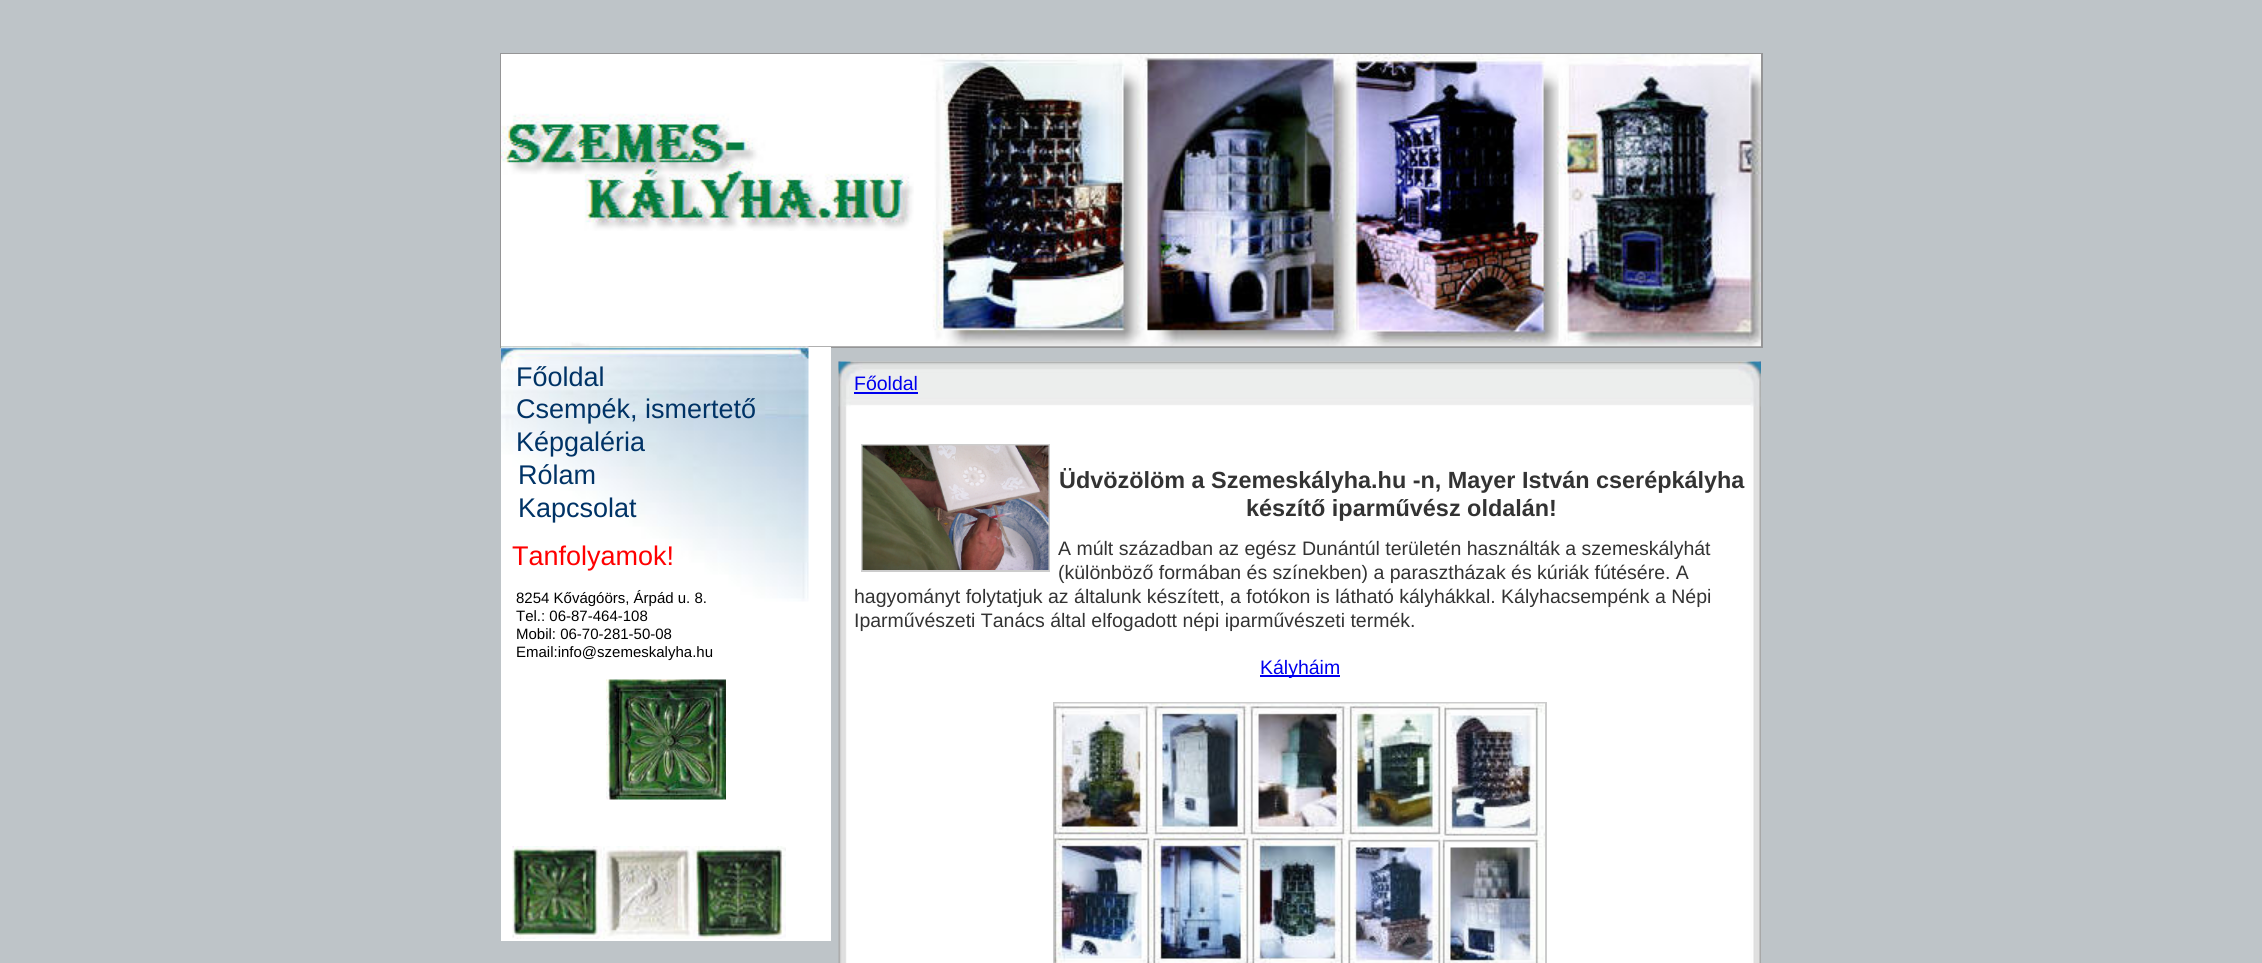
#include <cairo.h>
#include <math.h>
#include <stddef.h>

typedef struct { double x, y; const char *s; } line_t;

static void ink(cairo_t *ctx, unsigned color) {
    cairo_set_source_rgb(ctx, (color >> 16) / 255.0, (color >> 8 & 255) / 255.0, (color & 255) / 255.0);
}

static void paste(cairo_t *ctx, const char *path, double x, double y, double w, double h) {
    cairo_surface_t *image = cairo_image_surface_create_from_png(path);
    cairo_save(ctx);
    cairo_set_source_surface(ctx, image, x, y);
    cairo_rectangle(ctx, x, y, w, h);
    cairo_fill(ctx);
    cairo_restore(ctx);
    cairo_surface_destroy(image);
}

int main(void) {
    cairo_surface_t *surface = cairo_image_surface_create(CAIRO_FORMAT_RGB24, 2262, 963);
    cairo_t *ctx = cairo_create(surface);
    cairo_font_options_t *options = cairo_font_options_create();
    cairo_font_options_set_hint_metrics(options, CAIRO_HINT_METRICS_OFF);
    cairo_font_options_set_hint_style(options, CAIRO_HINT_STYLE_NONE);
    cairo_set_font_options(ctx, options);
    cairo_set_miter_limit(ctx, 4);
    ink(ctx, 0xBEC4C8);
    cairo_paint(ctx);
    cairo_rectangle(ctx, 501, 54, 1261, 293);
    ink(ctx, 0x959596);
    cairo_stroke(ctx);
    paste(ctx, "media/1.png", 501, 54, 1260, 293);
    paste(ctx, "media/2.png", 501, 54, 413, 177);
    ink(ctx, 0xFFFFFF);
    cairo_rectangle(ctx, 501, 347, 330, 594);
    cairo_fill(ctx);
    paste(ctx, "media/3.png", 501, 346, 308, 256);
    cairo_select_font_face(ctx, "Liberation Sans", CAIRO_FONT_SLANT_NORMAL, CAIRO_FONT_WEIGHT_NORMAL);
    cairo_set_font_size(ctx, 27);
    ink(ctx, 0x003366);
    {
        static const line_t items[] = {
            {516, 386, "Főoldal"},
            {516, 418, "Csempék, ismertető"},
            {516, 451, "Képgaléria"},
            {518, 484, "Rólam"},
            {518, 517, "Kapcsolat"},
        };
        for (size_t i = 0; i < sizeof items / sizeof *items; i++) {
            cairo_move_to(ctx, items[i].x, items[i].y);
            cairo_show_text(ctx, items[i].s);
        }
    }
    ink(ctx, 0xFF0000);
    cairo_move_to(ctx, 512, 565);
    cairo_show_text(ctx, "Tanfolyamok!");
    cairo_set_font_size(ctx, 15);
    ink(ctx, 0x000000);
    {
        static const line_t items[] = {
            {516, 603, "8254 Kővágóörs, Árpád u. 8."},
            {516, 621, "Tel.: 06-87-464-108"},
            {516, 639, "Mobil: 06-70-281-50-08"},
            {516, 657, "Email:info@szemeskalyha.hu"},
        };
        for (size_t i = 0; i < sizeof items / sizeof *items; i++) {
            cairo_move_to(ctx, items[i].x, items[i].y);
            cairo_show_text(ctx, items[i].s);
        }
    }
    paste(ctx, "media/4.png", 606, 679, 120, 121);
    paste(ctx, "media/5.png", 512, 846, 274, 93);
    paste(ctx, "media/6.png", 838, 361, 923, 602);
    paste(ctx, "media/7.png", 838, 361, 923, 46);
    cairo_set_font_size(ctx, 19.5);
    ink(ctx, 0x0000EE);
    cairo_move_to(ctx, 854, 390);
    cairo_show_text(ctx, "Főoldal");
    cairo_rectangle(ctx, 854, 392, 64, 2);
    cairo_fill(ctx);
    cairo_rectangle(ctx, 862, 445, 187, 126);
    ink(ctx, 0xCCCCCC);
    cairo_stroke(ctx);
    paste(ctx, "media/8.png", 862, 445, 187, 125);
    cairo_select_font_face(ctx, "Liberation Sans", CAIRO_FONT_SLANT_NORMAL, CAIRO_FONT_WEIGHT_BOLD);
    cairo_set_font_size(ctx, 23.4);
    ink(ctx, 0x333333);
    cairo_move_to(ctx, 1059, 488);
    cairo_show_text(ctx, "Üdvözölöm a Szemeskályha.hu -n, Mayer István cserépkályha");
    cairo_move_to(ctx, 1246, 516);
    cairo_show_text(ctx, "készítő iparművész oldalán!");
    cairo_select_font_face(ctx, "Liberation Sans", CAIRO_FONT_SLANT_NORMAL, CAIRO_FONT_WEIGHT_NORMAL);
    cairo_set_font_size(ctx, 19.5);
    {
        static const line_t items[] = {
            {1058, 555, "A múlt században az egész Dunántúl területén használták a szemeskályhát"},
            {1058, 579, "(különböző formában és színekben) a parasztházak és kúriák fútésére. A"},
            {854, 603, "hagyományt folytatjuk az általunk készített, a fotókon is látható kályhákkal. Kályhacsempénk a Népi"},
            {854, 627, "Iparművészeti Tanács által elfogadott népi iparművészeti termék."},
        };
        for (size_t i = 0; i < sizeof items / sizeof *items; i++) {
            cairo_move_to(ctx, items[i].x, items[i].y);
            cairo_show_text(ctx, items[i].s);
        }
    }
    ink(ctx, 0x0000EE);
    cairo_rectangle(ctx, 1260, 675, 80, 2);
    cairo_fill(ctx);
    cairo_move_to(ctx, 1260, 674);
    cairo_show_text(ctx, "Kályháim");
    cairo_rectangle(ctx, 1054, 703, 492, 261);
    ink(ctx, 0xCCCCCC);
    cairo_stroke(ctx);
    paste(ctx, "media/9.png", 1054, 703, 491, 260);
    cairo_surface_write_to_png(surface, "image.png");
    cairo_font_options_destroy(options);
    cairo_destroy(ctx);
    cairo_surface_destroy(surface);
    return 0;
}
